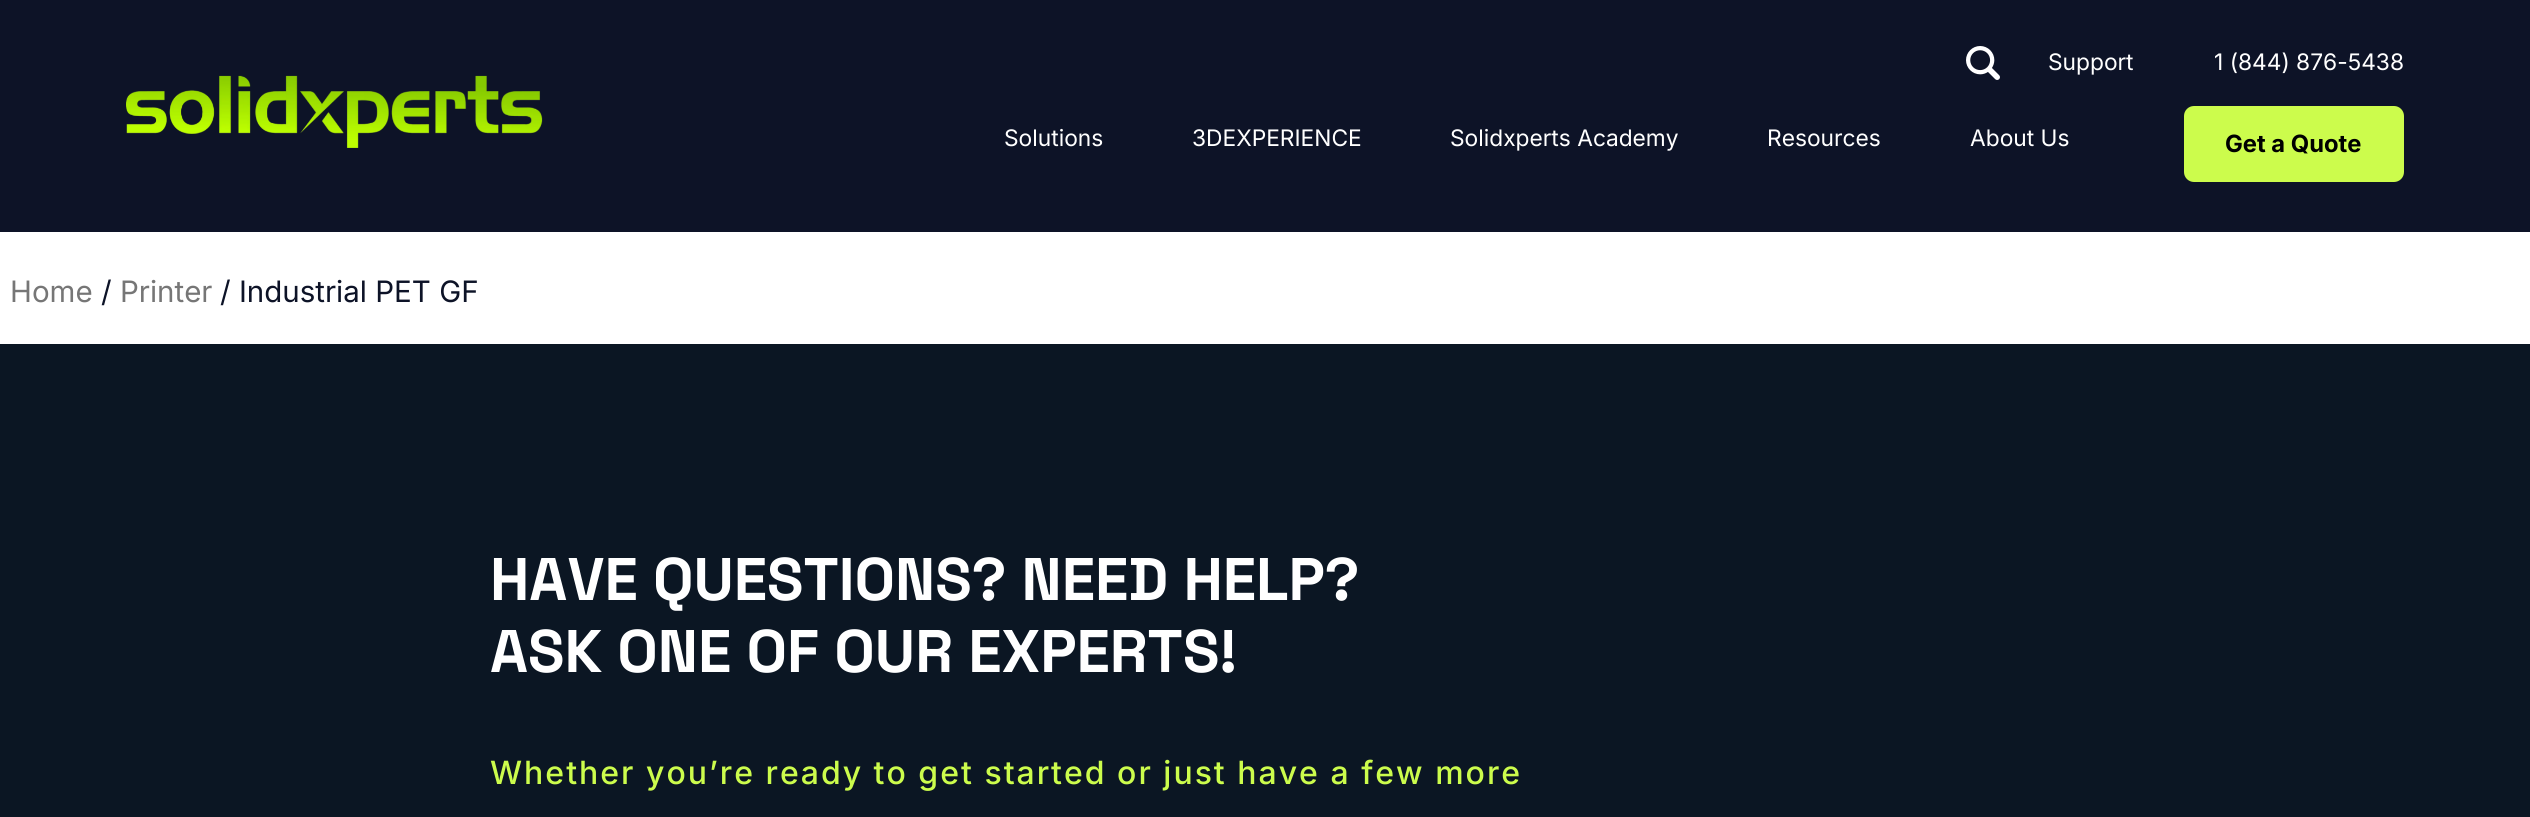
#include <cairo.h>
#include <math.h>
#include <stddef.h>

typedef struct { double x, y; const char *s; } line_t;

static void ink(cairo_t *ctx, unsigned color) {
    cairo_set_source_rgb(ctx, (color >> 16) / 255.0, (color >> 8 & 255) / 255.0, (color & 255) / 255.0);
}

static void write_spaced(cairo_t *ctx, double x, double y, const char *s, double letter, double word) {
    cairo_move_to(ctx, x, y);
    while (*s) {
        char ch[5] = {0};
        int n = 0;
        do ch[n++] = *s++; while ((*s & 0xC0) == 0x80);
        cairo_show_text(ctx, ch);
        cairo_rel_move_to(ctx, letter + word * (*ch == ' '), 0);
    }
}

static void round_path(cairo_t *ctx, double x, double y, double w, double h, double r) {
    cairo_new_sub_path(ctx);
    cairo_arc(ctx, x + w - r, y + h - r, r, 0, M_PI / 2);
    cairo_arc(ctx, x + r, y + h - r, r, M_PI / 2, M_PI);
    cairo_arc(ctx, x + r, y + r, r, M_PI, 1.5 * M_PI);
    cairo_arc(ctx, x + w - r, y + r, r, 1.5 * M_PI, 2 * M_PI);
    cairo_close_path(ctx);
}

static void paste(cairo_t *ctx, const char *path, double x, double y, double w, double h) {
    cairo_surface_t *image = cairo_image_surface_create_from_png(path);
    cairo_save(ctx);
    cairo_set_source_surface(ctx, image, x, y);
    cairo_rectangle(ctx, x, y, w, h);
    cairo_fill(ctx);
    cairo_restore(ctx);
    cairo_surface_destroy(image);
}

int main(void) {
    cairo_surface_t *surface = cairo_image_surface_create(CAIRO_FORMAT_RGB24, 2530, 817);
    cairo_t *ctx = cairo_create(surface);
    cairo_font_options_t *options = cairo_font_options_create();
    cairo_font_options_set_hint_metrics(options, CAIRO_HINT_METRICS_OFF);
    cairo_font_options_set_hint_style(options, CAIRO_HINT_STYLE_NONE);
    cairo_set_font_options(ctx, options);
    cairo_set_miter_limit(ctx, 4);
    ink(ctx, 0xFFFFFF);
    cairo_paint(ctx);
    ink(ctx, 0x0D1327);
    cairo_rectangle(ctx, 0, 0, 2530, 232);
    cairo_fill(ctx);
    paste(ctx, "media/1.png", 1966, 46, 34, 34);
    cairo_select_font_face(ctx, "Inter", CAIRO_FONT_SLANT_NORMAL, CAIRO_FONT_WEIGHT_NORMAL);
    cairo_set_font_size(ctx, 22.75);
    ink(ctx, 0xFFFFFF);
    cairo_move_to(ctx, 2048, 70);
    cairo_show_text(ctx, "Support");
    cairo_move_to(ctx, 2214, 70);
    cairo_show_text(ctx, "1 (844) 876-5438");
    paste(ctx, "media/2.png", 126, 75, 417, 73);
    {
        static const line_t items[] = {
            {1004, 146, "Solutions"},
            {1192, 146, "3DEXPERIENCE"},
            {1450, 146, "Solidxperts Academy"},
            {1767, 146, "Resources"},
            {1970, 146, "About Us"},
        };
        for (size_t i = 0; i < sizeof items / sizeof *items; i++) {
            cairo_move_to(ctx, items[i].x, items[i].y);
            cairo_show_text(ctx, items[i].s);
        }
    }
    ink(ctx, 0xCCFC4C);
    round_path(ctx, 2185, 107, 218, 74, 9);
    cairo_fill_preserve(ctx);
    cairo_stroke(ctx);
    cairo_select_font_face(ctx, "Inter", CAIRO_FONT_SLANT_NORMAL, CAIRO_FONT_WEIGHT_BOLD);
    cairo_set_font_size(ctx, 23.75);
    ink(ctx, 0x000000);
    cairo_move_to(ctx, 2225, 152);
    cairo_show_text(ctx, "Get a Quote");
    cairo_select_font_face(ctx, "Inter", CAIRO_FONT_SLANT_NORMAL, CAIRO_FONT_WEIGHT_NORMAL);
    cairo_set_font_size(ctx, 29.5);
    ink(ctx, 0x767676);
    cairo_move_to(ctx, 10, 302);
    cairo_show_text(ctx, "Home");
    ink(ctx, 0x0D1327);
    cairo_move_to(ctx, 101, 302);
    cairo_show_text(ctx, "/");
    ink(ctx, 0x767676);
    cairo_move_to(ctx, 120, 302);
    cairo_show_text(ctx, "Printer");
    ink(ctx, 0x0D1327);
    cairo_move_to(ctx, 220, 302);
    cairo_show_text(ctx, "/ Industrial PET GF");
    ink(ctx, 0x0B1623);
    cairo_rectangle(ctx, 0, 344, 2530, 473);
    cairo_fill(ctx);
    cairo_select_font_face(ctx, "Space Grotesk", CAIRO_FONT_SLANT_NORMAL, CAIRO_FONT_WEIGHT_BOLD);
    cairo_set_font_size(ctx, 60);
    ink(ctx, 0xFFFFFF);
    cairo_move_to(ctx, 490, 600);
    cairo_show_text(ctx, "HAVE QUESTIONS? NEED HELP?");
    cairo_move_to(ctx, 490, 672);
    cairo_show_text(ctx, "ASK ONE OF OUR EXPERTS!");
    cairo_select_font_face(ctx, "Inter Medium", CAIRO_FONT_SLANT_NORMAL, CAIRO_FONT_WEIGHT_NORMAL);
    cairo_set_font_size(ctx, 32);
    ink(ctx, 0xCCFC4C);
    write_spaced(ctx, 490, 784, "Whether you’re ready to get started or just have a few more", 2, 0);
    cairo_surface_write_to_png(surface, "image.png");
    cairo_font_options_destroy(options);
    cairo_destroy(ctx);
    cairo_surface_destroy(surface);
    return 0;
}
